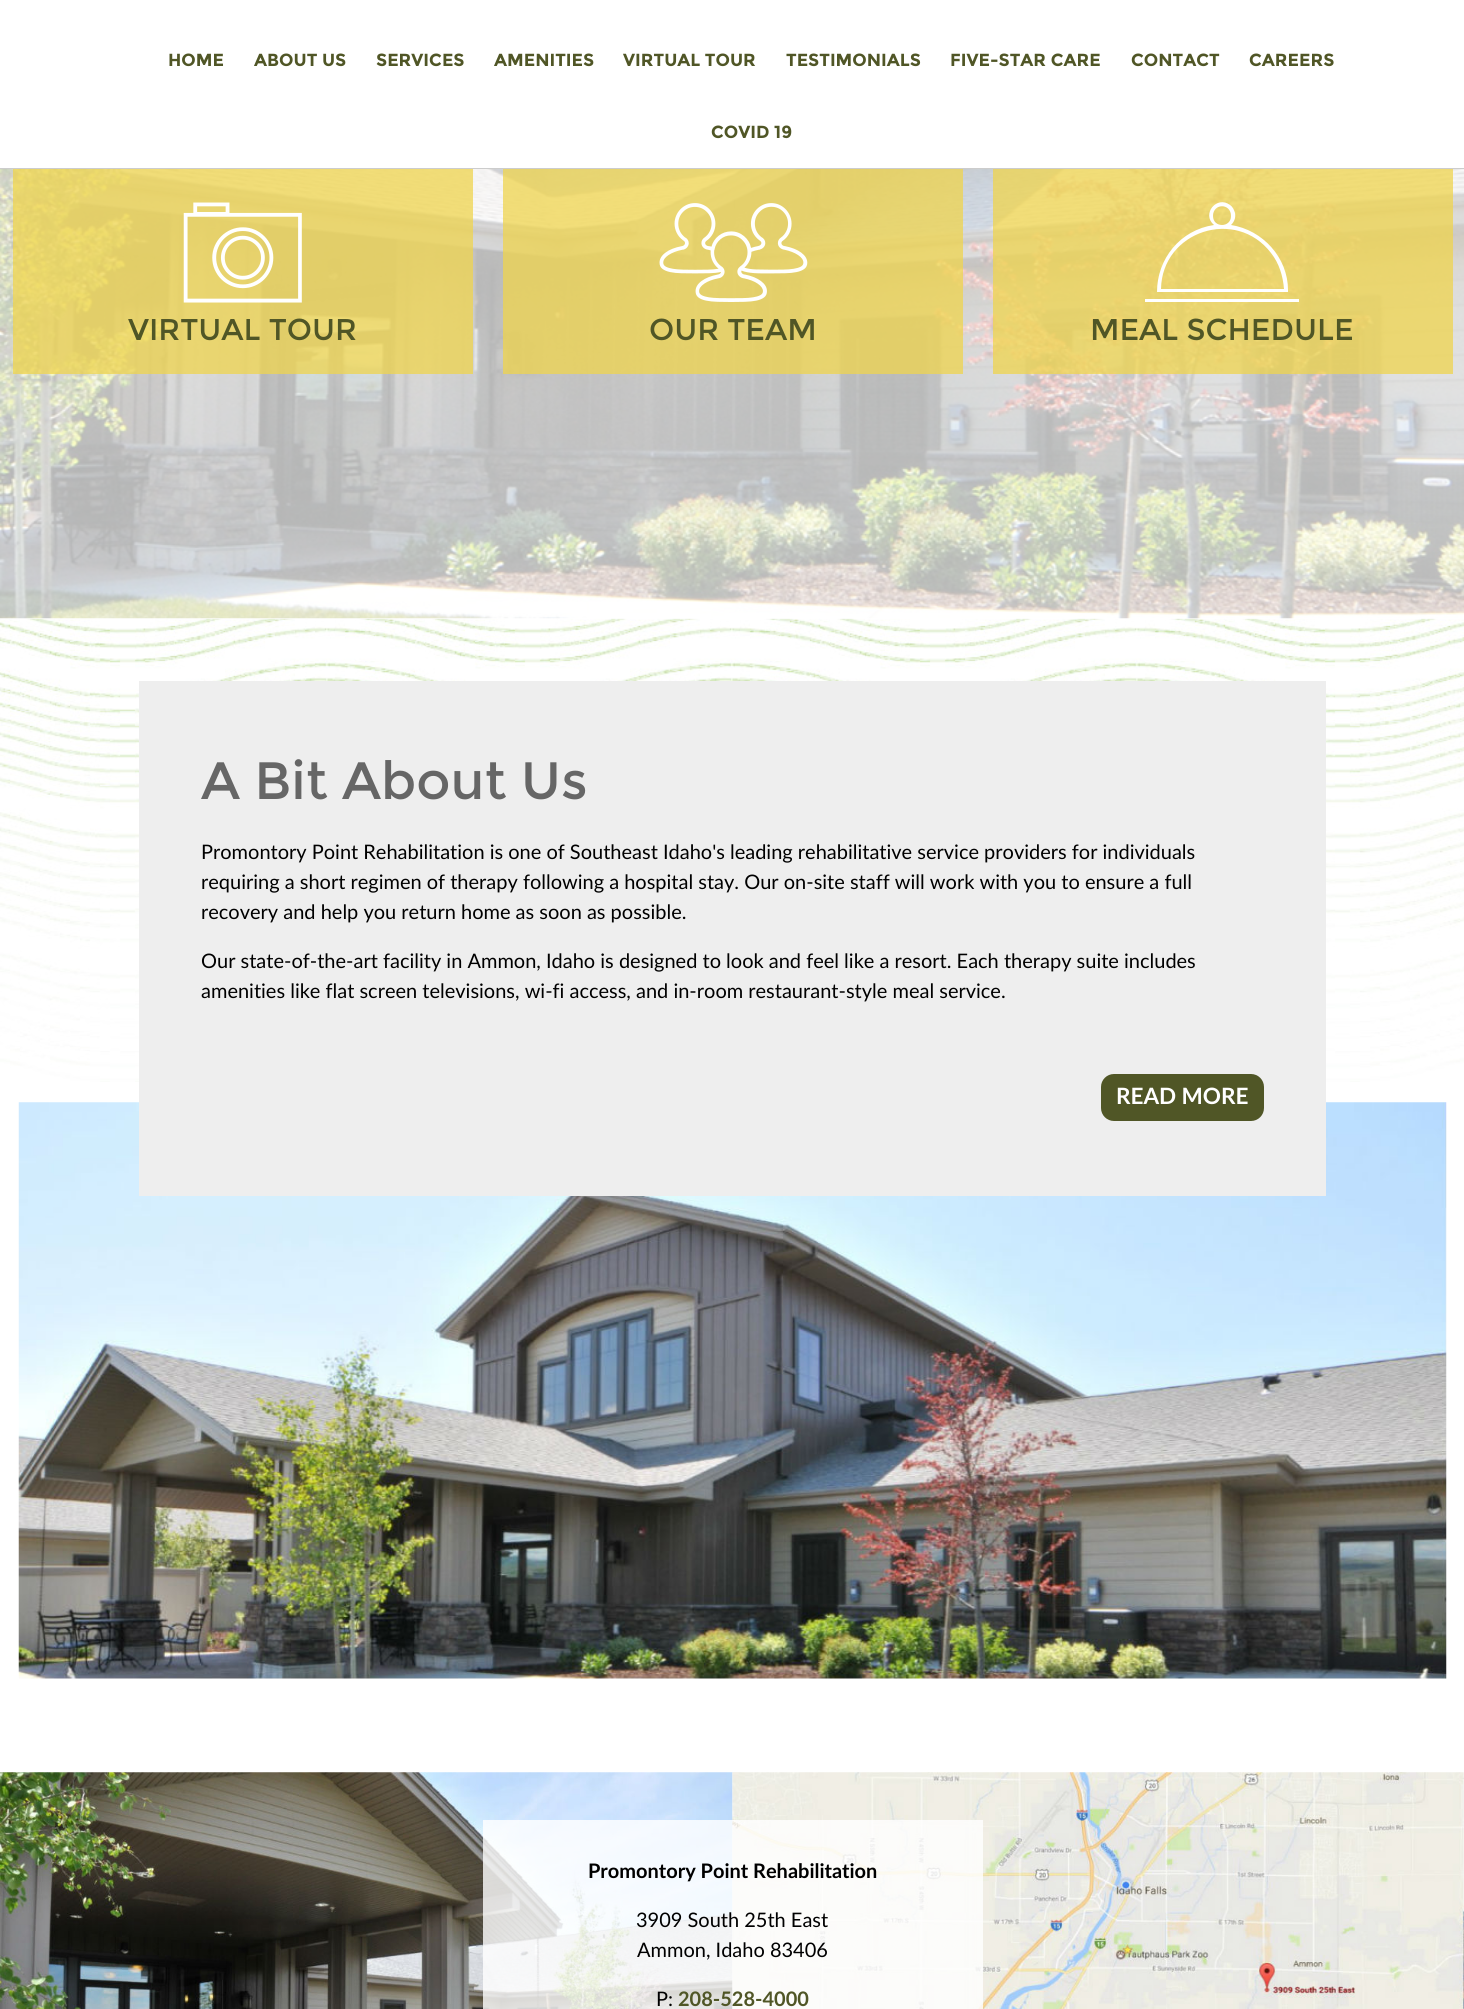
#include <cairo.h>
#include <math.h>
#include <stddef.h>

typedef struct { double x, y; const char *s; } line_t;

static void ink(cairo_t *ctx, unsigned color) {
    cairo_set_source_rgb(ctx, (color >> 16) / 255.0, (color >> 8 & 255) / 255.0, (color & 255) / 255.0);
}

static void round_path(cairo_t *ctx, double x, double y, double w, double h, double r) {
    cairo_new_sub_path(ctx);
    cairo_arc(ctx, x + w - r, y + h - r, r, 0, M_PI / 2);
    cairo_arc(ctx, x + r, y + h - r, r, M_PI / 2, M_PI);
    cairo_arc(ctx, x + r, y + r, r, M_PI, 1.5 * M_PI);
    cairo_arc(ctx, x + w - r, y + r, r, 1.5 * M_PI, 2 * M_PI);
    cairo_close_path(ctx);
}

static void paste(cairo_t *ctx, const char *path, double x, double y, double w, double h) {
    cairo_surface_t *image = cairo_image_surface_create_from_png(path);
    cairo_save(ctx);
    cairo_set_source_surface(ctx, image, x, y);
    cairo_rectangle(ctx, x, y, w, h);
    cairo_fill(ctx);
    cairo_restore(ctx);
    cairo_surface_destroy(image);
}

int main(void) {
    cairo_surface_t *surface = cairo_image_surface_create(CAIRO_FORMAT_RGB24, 1464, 2009);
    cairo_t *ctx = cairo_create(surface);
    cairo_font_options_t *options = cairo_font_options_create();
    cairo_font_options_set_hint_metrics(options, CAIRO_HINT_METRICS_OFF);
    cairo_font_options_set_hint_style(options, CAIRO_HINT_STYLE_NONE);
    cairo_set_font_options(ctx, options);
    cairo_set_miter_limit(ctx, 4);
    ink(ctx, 0xFFFFFF);
    cairo_paint(ctx);
    ink(ctx, 0xCCCCCC);
    cairo_rectangle(ctx, 0, 168, 1464, 1);
    cairo_fill(ctx);
    cairo_select_font_face(ctx, "Montserrat", CAIRO_FONT_SLANT_NORMAL, CAIRO_FONT_WEIGHT_BOLD);
    cairo_set_font_size(ctx, 17.5);
    ink(ctx, 0x505626);
    {
        static const line_t items[] = {
            {168, 66, "HOME"},
            {254, 66, "ABOUT US"},
            {376, 66, "SERVICES"},
            {494, 66, "AMENITIES"},
            {623, 66, "VIRTUAL TOUR"},
            {786, 66, "TESTIMONIALS"},
            {950, 66, "FIVE-STAR CARE"},
            {1131, 66, "CONTACT"},
            {1249, 66, "CAREERS"},
            {711, 138, "COVID 19"},
        };
        for (size_t i = 0; i < sizeof items / sizeof *items; i++) {
            cairo_move_to(ctx, items[i].x, items[i].y);
            cairo_show_text(ctx, items[i].s);
        }
    }
    paste(ctx, "media/1.png", 0, 169, 1464, 450);
    paste(ctx, "media/4.png", 0, 618, 1464, 464);
    cairo_set_source_rgba(ctx, 1, 1, 1, 0.7);
    cairo_rectangle(ctx, 0, 169, 1464, 450);
    cairo_fill(ctx);
    cairo_set_source_rgba(ctx, 0.933, 0.831, 0.306, 0.75);
    cairo_rectangle(ctx, 13, 169, 460, 205);
    cairo_fill(ctx);
    paste(ctx, "media/2.png", 183, 202, 119, 101);
    cairo_select_font_face(ctx, "Montserrat", CAIRO_FONT_SLANT_NORMAL, CAIRO_FONT_WEIGHT_NORMAL);
    cairo_set_font_size(ctx, 30);
    ink(ctx, 0x505626);
    cairo_move_to(ctx, 128, 340);
    cairo_show_text(ctx, "VIRTUAL TOUR");
    cairo_set_source_rgba(ctx, 0.933, 0.831, 0.306, 0.75);
    cairo_rectangle(ctx, 503, 169, 460, 205);
    cairo_fill(ctx);
    paste(ctx, "media/3.png", 659, 203, 149, 99);
    ink(ctx, 0x505626);
    cairo_move_to(ctx, 649, 340);
    cairo_show_text(ctx, "OUR TEAM");
    cairo_set_source_rgba(ctx, 0.933, 0.831, 0.306, 0.75);
    cairo_rectangle(ctx, 993, 169, 460, 205);
    cairo_fill(ctx);
    ink(ctx, 0xFFFFFF);
    cairo_new_path(ctx);
    cairo_move_to(ctx, 1145, 299);
    cairo_line_to(ctx, 1299, 299);
    cairo_line_to(ctx, 1299, 302);
    cairo_line_to(ctx, 1145, 302);
    cairo_close_path(ctx);
    cairo_move_to(ctx, 1288, 290);
    cairo_curve_to(ctx, 1288, 258, 1263, 230, 1231, 225);
    cairo_curve_to(ctx, 1234, 222, 1236, 218, 1235, 213);
    cairo_curve_to(ctx, 1234, 210, 1233, 207, 1230, 205);
    cairo_curve_to(ctx, 1217, 195, 1201, 214, 1214, 225);
    cairo_curve_to(ctx, 1180, 230, 1157, 259, 1157, 292);
    cairo_line_to(ctx, 1288, 292);
    cairo_close_path(ctx);
    cairo_move_to(ctx, 1213, 216);
    cairo_curve_to(ctx, 1213, 203, 1231, 203, 1231, 216);
    cairo_curve_to(ctx, 1231, 228, 1213, 228, 1213, 216);
    cairo_close_path(ctx);
    cairo_move_to(ctx, 1161, 289);
    cairo_curve_to(ctx, 1162, 231, 1236, 207, 1271, 253);
    cairo_curve_to(ctx, 1279, 263, 1283, 276, 1284, 289);
    cairo_close_path(ctx);
    cairo_fill(ctx);
    ink(ctx, 0x505626);
    cairo_move_to(ctx, 1090, 340);
    cairo_show_text(ctx, "MEAL SCHEDULE");
    paste(ctx, "media/5.png", 18, 1102, 1429, 577);
    ink(ctx, 0xEEEEEE);
    cairo_rectangle(ctx, 139, 681, 1187, 515);
    cairo_fill(ctx);
    cairo_set_font_size(ctx, 52.5);
    ink(ctx, 0x666666);
    cairo_move_to(ctx, 201, 799);
    cairo_show_text(ctx, "A Bit About Us");
    cairo_select_font_face(ctx, "Lato", CAIRO_FONT_SLANT_NORMAL, CAIRO_FONT_WEIGHT_NORMAL);
    cairo_set_font_size(ctx, 20);
    ink(ctx, 0x000000);
    {
        static const line_t items[] = {
            {201, 859, "Promontory Point Rehabilitation is one of Southeast Idaho's leading rehabilitative service providers for individuals"},
            {201, 889, "requiring a short regimen of therapy following a hospital stay. Our on-site staff will work with you to ensure a full"},
            {201, 919, "recovery and help you return home as soon as possible."},
            {201, 968, "Our state-of-the-art facility in Ammon, Idaho is designed to look and feel like a resort. Each therapy suite includes"},
            {201, 998, "amenities like flat screen televisions, wi-fi access, and in-room restaurant-style meal service."},
        };
        for (size_t i = 0; i < sizeof items / sizeof *items; i++) {
            cairo_move_to(ctx, items[i].x, items[i].y);
            cairo_show_text(ctx, items[i].s);
        }
    }
    ink(ctx, 0x505626);
    round_path(ctx, 1101, 1074, 163, 47, 13);
    cairo_fill(ctx);
    cairo_select_font_face(ctx, "Lato", CAIRO_FONT_SLANT_NORMAL, CAIRO_FONT_WEIGHT_BOLD);
    cairo_set_font_size(ctx, 22.5);
    ink(ctx, 0xFFFFFF);
    cairo_move_to(ctx, 1116, 1104);
    cairo_show_text(ctx, "READ MORE");
    paste(ctx, "media/6.png", 0, 1772, 733, 237);
    paste(ctx, "media/7.png", 732, 1772, 732, 237);
    cairo_set_source_rgba(ctx, 1, 1, 1, 0.8);
    cairo_rectangle(ctx, 483, 1820, 500, 189);
    cairo_fill(ctx);
    cairo_set_font_size(ctx, 20);
    ink(ctx, 0x000000);
    cairo_move_to(ctx, 588, 1878);
    cairo_show_text(ctx, "Promontory Point Rehabilitation");
    cairo_select_font_face(ctx, "Lato", CAIRO_FONT_SLANT_NORMAL, CAIRO_FONT_WEIGHT_NORMAL);
    {
        static const line_t items[] = {
            {636, 1927, "3909 South 25th East"},
            {637, 1957, "Ammon, Idaho 83406"},
            {656, 2006, "P:"},
        };
        for (size_t i = 0; i < sizeof items / sizeof *items; i++) {
            cairo_move_to(ctx, items[i].x, items[i].y);
            cairo_show_text(ctx, items[i].s);
        }
    }
    cairo_select_font_face(ctx, "Lato", CAIRO_FONT_SLANT_NORMAL, CAIRO_FONT_WEIGHT_BOLD);
    ink(ctx, 0x505626);
    cairo_move_to(ctx, 678, 2006);
    cairo_show_text(ctx, "208-528-4000");
    cairo_surface_write_to_png(surface, "image.png");
    cairo_font_options_destroy(options);
    cairo_destroy(ctx);
    cairo_surface_destroy(surface);
    return 0;
}
